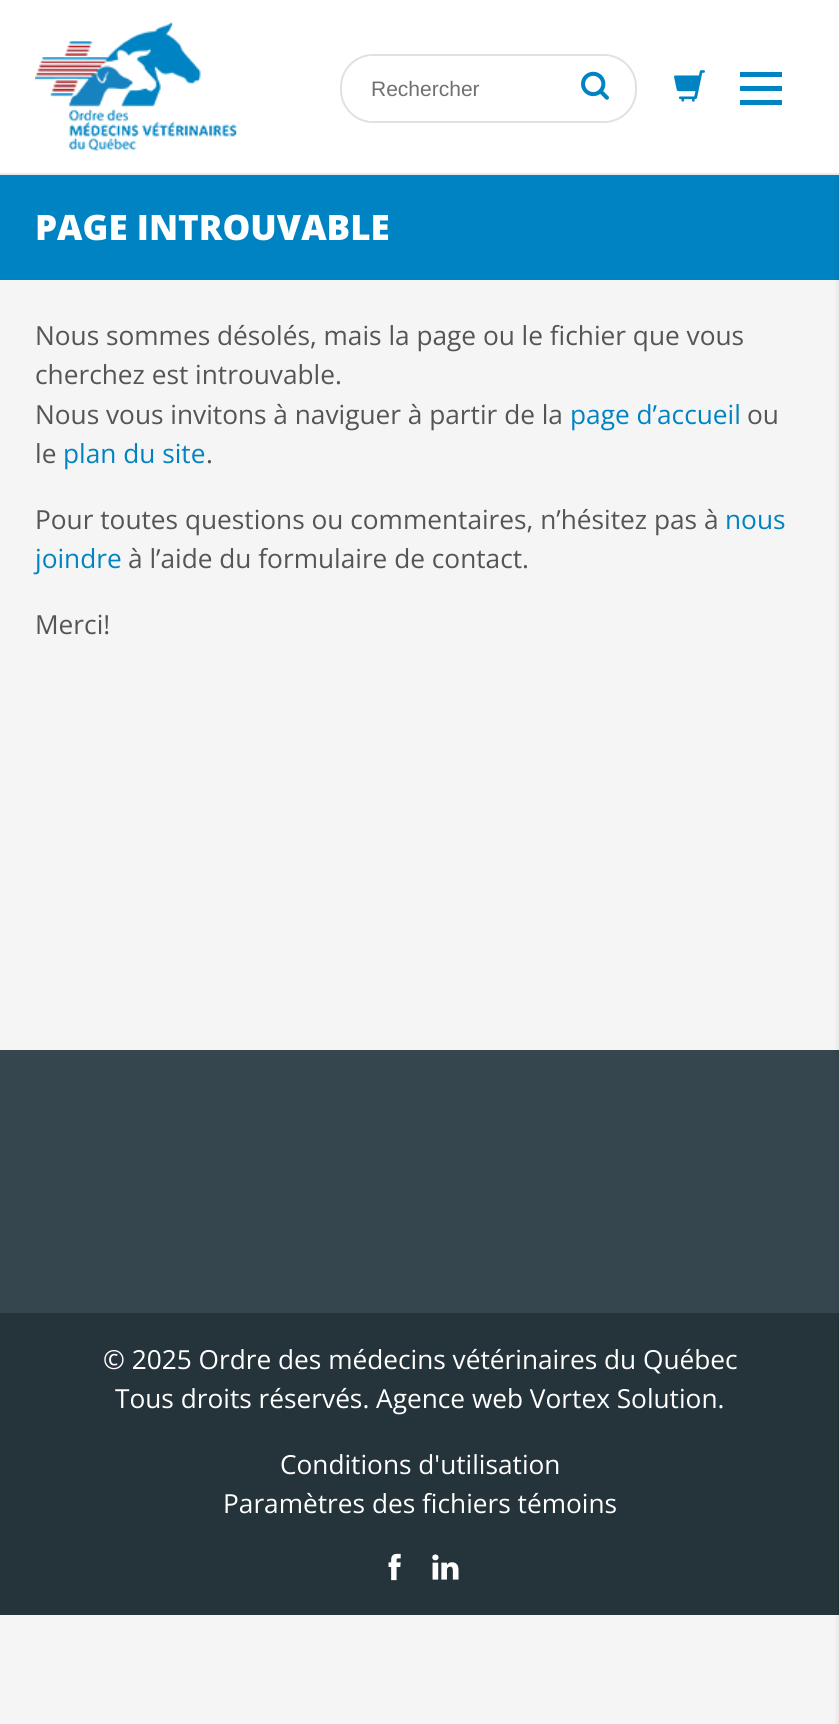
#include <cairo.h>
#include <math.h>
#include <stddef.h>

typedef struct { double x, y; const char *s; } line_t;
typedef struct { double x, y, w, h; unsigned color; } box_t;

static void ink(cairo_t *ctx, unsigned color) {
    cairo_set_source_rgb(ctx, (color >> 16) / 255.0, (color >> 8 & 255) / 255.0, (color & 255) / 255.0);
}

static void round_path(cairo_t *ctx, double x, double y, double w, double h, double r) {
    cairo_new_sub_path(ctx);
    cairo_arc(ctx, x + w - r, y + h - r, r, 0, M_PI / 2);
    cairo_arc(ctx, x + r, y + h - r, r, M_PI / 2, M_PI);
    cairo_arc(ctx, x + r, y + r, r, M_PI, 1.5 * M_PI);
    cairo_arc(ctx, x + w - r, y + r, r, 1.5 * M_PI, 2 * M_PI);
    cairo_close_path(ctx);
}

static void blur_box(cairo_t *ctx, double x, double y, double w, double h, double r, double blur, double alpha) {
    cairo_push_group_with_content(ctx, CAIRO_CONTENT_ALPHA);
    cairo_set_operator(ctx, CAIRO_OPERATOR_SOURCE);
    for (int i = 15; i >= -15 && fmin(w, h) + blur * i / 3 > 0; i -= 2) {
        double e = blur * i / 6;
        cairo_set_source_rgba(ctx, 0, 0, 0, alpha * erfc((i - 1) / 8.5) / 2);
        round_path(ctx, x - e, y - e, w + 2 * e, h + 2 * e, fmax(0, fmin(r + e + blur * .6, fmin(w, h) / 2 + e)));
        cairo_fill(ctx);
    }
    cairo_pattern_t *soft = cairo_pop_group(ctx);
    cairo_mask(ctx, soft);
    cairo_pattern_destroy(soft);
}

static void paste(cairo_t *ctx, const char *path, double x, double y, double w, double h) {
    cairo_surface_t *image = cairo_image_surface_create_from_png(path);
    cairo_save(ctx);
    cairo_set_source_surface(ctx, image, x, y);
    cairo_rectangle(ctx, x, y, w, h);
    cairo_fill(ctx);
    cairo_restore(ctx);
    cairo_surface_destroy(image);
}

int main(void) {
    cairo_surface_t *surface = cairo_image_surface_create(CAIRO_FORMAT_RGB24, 839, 1724);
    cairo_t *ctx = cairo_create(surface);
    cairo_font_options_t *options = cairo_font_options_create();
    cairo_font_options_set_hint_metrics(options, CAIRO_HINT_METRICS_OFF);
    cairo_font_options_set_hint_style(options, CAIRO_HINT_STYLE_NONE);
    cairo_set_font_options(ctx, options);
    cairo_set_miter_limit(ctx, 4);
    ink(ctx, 0xF5F5F5);
    cairo_paint(ctx);
    {
        static const box_t items[] = {
            {0, 175, 839, 105, 0x0083C2},
            {0, 1050, 839, 263, 0x36464E},
            {0, 1313, 839, 302, 0x25333A},
        };
        for (size_t i = 0; i < sizeof items / sizeof *items; i++) {
            ink(ctx, items[i].color);
            cairo_rectangle(ctx, items[i].x, items[i].y, items[i].w, items[i].h);
            cairo_fill(ctx);
        }
    }
    ink(ctx, 0x000000);
    blur_box(ctx, 838, 179, 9, 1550, 0, 2.5, 0.1);
    ink(ctx, 0xFFFFFF);
    cairo_rectangle(ctx, 0, 0, 839, 173);
    cairo_fill(ctx);
    ink(ctx, 0xEBEBEB);
    cairo_rectangle(ctx, 0, 173, 839, 2);
    cairo_fill(ctx);
    paste(ctx, "media/1.png", 35, 22, 202, 129);
    round_path(ctx, 341, 55, 295, 67, 32);
    ink(ctx, 0xE1E1E1);
    cairo_stroke(ctx);
    ink(ctx, 0xFFFFFF);
    cairo_rectangle(ctx, 368, 56, 241, 65);
    cairo_fill(ctx);
    cairo_select_font_face(ctx, "Liberation Sans", CAIRO_FONT_SLANT_NORMAL, CAIRO_FONT_WEIGHT_NORMAL);
    cairo_set_font_size(ctx, 21);
    ink(ctx, 0x707070);
    cairo_move_to(ctx, 371, 96);
    cairo_show_text(ctx, "Rechercher");
    paste(ctx, "media/2.png", 581, 71, 28, 29);
    paste(ctx, "media/3.png", 674, 70, 31, 32);
    {
        static const box_t items[] = {
            {740, 86, 42, 5, 0x0083C2},
            {740, 72, 42, 5, 0x0083C2},
            {740, 100, 42, 5, 0x0083C2},
        };
        for (size_t i = 0; i < sizeof items / sizeof *items; i++) {
            ink(ctx, items[i].color);
            cairo_rectangle(ctx, items[i].x, items[i].y, items[i].w, items[i].h);
            cairo_fill(ctx);
        }
    }
    cairo_select_font_face(ctx, "Open Sans ExtraBold", CAIRO_FONT_SLANT_NORMAL, CAIRO_FONT_WEIGHT_NORMAL);
    cairo_set_font_size(ctx, 35);
    ink(ctx, 0xFFFFFF);
    cairo_move_to(ctx, 35, 240);
    cairo_show_text(ctx, "PAGE INTROUVABLE");
    cairo_select_font_face(ctx, "Open Sans", CAIRO_FONT_SLANT_NORMAL, CAIRO_FONT_WEIGHT_NORMAL);
    cairo_set_font_size(ctx, 26.25);
    ink(ctx, 0x555555);
    {
        static const line_t items[] = {
            {35, 345, "Nous sommes désolés, mais la page ou le fichier que vous"},
            {35, 384, "cherchez est introuvable."},
            {35, 424, "Nous vous invitons à naviguer à partir de la"},
        };
        for (size_t i = 0; i < sizeof items / sizeof *items; i++) {
            cairo_move_to(ctx, items[i].x, items[i].y);
            cairo_show_text(ctx, items[i].s);
        }
    }
    ink(ctx, 0x0083C2);
    cairo_move_to(ctx, 570, 424);
    cairo_show_text(ctx, "page d’accueil");
    ink(ctx, 0x555555);
    cairo_move_to(ctx, 747, 424);
    cairo_show_text(ctx, "ou");
    cairo_move_to(ctx, 35, 463);
    cairo_show_text(ctx, "le");
    ink(ctx, 0x0083C2);
    cairo_move_to(ctx, 63, 463);
    cairo_show_text(ctx, "plan du site");
    ink(ctx, 0x555555);
    cairo_move_to(ctx, 206, 463);
    cairo_show_text(ctx, ".");
    cairo_move_to(ctx, 35, 529);
    cairo_show_text(ctx, "Pour toutes questions ou commentaires, n’hésitez pas à");
    ink(ctx, 0x0083C2);
    cairo_move_to(ctx, 725, 529);
    cairo_show_text(ctx, "nous");
    cairo_move_to(ctx, 35, 568);
    cairo_show_text(ctx, "joindre");
    ink(ctx, 0x555555);
    cairo_move_to(ctx, 128, 568);
    cairo_show_text(ctx, "à l’aide du formulaire de contact.");
    cairo_move_to(ctx, 35, 634);
    cairo_show_text(ctx, "Merci!");
    ink(ctx, 0xFFFFFF);
    {
        static const line_t items[] = {
            {103, 1369, "© 2025 Ordre des médecins vétérinaires du Québec"},
            {115, 1408, "Tous droits réservés. Agence web Vortex Solution."},
            {280, 1474, "Conditions d'utilisation"},
            {223, 1513, "Paramètres des fichiers témoins"},
        };
        for (size_t i = 0; i < sizeof items / sizeof *items; i++) {
            cairo_move_to(ctx, items[i].x, items[i].y);
            cairo_show_text(ctx, items[i].s);
        }
    }
    paste(ctx, "media/4.png", 388, 1553, 13, 28);
    paste(ctx, "media/5.png", 432, 1554, 27, 26);
    cairo_surface_write_to_png(surface, "image.png");
    cairo_font_options_destroy(options);
    cairo_destroy(ctx);
    cairo_surface_destroy(surface);
    return 0;
}
